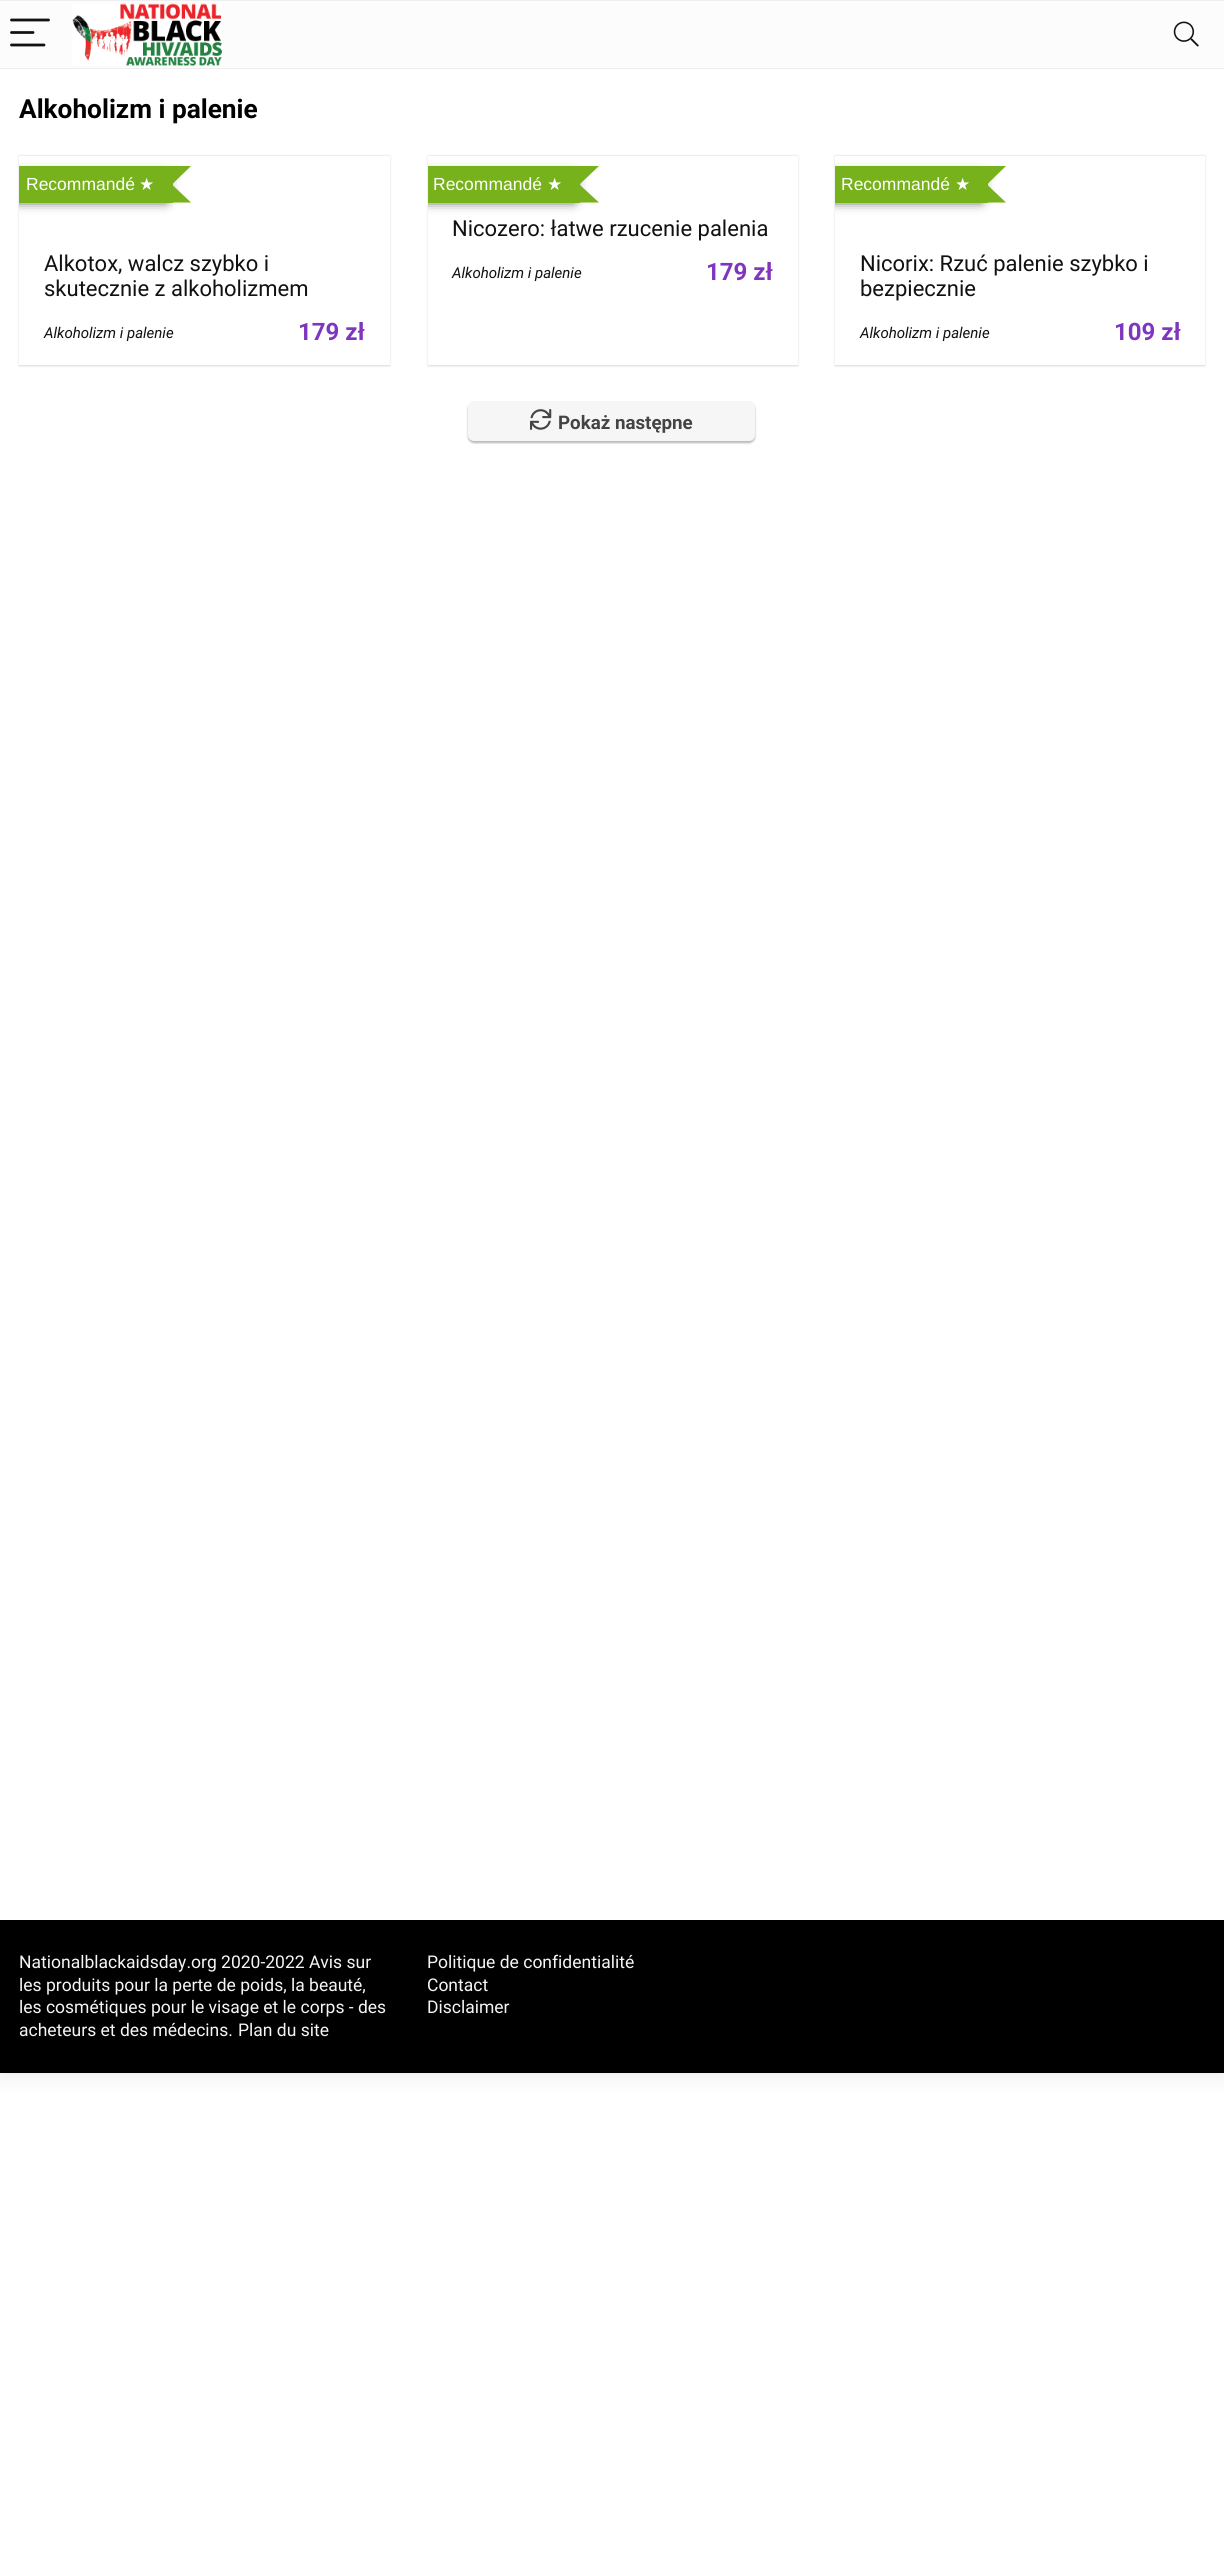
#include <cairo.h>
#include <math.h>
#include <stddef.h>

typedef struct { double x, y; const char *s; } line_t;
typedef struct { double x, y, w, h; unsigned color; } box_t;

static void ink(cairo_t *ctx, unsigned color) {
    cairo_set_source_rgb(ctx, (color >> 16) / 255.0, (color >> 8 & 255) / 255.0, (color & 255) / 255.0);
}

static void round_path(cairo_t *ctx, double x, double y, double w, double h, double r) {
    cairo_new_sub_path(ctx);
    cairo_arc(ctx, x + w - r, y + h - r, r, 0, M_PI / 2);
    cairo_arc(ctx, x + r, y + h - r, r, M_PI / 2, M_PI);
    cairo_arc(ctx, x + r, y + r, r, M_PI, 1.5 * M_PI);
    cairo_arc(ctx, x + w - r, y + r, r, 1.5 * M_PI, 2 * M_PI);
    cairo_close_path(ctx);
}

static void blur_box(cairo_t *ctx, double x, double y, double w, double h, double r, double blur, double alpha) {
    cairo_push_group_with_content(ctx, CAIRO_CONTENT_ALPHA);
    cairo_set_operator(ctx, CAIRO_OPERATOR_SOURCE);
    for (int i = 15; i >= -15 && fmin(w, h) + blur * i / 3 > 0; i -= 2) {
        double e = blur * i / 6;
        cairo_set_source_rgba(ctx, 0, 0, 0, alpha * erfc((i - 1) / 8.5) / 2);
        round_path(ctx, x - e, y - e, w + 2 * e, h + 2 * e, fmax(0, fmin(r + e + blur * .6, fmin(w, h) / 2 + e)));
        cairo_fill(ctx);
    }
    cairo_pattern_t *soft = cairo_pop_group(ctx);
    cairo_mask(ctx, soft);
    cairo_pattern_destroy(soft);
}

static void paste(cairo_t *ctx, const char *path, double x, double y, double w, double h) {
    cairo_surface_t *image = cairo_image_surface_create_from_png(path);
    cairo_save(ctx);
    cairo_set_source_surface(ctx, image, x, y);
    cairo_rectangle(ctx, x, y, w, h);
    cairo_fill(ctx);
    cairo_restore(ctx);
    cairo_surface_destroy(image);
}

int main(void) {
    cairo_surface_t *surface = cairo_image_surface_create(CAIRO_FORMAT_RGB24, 1224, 2572);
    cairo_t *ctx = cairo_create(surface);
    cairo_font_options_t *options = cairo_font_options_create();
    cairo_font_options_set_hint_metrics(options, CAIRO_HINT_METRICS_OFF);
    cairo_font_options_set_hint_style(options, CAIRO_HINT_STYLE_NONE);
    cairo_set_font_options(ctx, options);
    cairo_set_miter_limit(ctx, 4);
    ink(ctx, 0xFFFFFF);
    cairo_paint(ctx);
    ink(ctx, 0x000000);
    blur_box(ctx, 0, 0, 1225, 2073, 0, 12.5, 0.1);
    {
        static const box_t items[] = {
            {0, 69, 1224, 1851, 0xFFFFFF},
            {0, 1, 1224, 67, 0xFCFCFC},
            {0, 0, 1224, 1, 0xEEEEEE},
            {0, 68, 1224, 1, 0xEEEEEE},
        };
        for (size_t i = 0; i < sizeof items / sizeof *items; i++) {
            ink(ctx, items[i].color);
            cairo_rectangle(ctx, items[i].x, items[i].y, items[i].w, items[i].h);
            cairo_fill(ctx);
        }
    }
    cairo_new_path(ctx);
    cairo_move_to(ctx, 11.5, 20);
    cairo_line_to(ctx, 48.5, 20);
    cairo_move_to(ctx, 11.5, 32.5);
    cairo_line_to(ctx, 33, 32.5);
    cairo_move_to(ctx, 11.5, 45);
    cairo_line_to(ctx, 44, 45);
    ink(ctx, 0x111111);
    cairo_set_line_width(ctx, 2.8);
    cairo_set_line_cap(ctx, CAIRO_LINE_CAP_ROUND);
    cairo_stroke(ctx);
    paste(ctx, "media/1.png", 72, 3, 150, 63);
    paste(ctx, "media/2.png", 1173, 21, 26, 26);
    cairo_select_font_face(ctx, "Roboto", CAIRO_FONT_SLANT_NORMAL, CAIRO_FONT_WEIGHT_BOLD);
    cairo_set_font_size(ctx, 26.25);
    ink(ctx, 0x000000);
    cairo_move_to(ctx, 19, 118);
    cairo_show_text(ctx, "Alkoholizm i palenie");
    cairo_save(ctx);
    cairo_set_fill_rule(ctx, CAIRO_FILL_RULE_EVEN_ODD);
    cairo_new_path(ctx);
    cairo_move_to(ctx, 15, 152);
    cairo_line_to(ctx, 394, 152);
    cairo_line_to(ctx, 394, 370);
    cairo_line_to(ctx, 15, 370);
    cairo_close_path(ctx);
    cairo_move_to(ctx, 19, 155);
    cairo_line_to(ctx, 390, 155);
    cairo_line_to(ctx, 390, 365);
    cairo_line_to(ctx, 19, 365);
    cairo_close_path(ctx);
    cairo_clip(ctx);
    ink(ctx, 0x000000);
    blur_box(ctx, 19, 156, 371, 210, 0, 1, 0.15);
    cairo_restore(ctx);
    ink(ctx, 0xEFEFEF);
    cairo_rectangle(ctx, 19, 155, 371, 1);
    cairo_fill(ctx);
    cairo_save(ctx);
    cairo_rectangle(ctx, 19, 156, 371, 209);
    cairo_clip(ctx);
    ink(ctx, 0x000000);
    blur_box(ctx, 14, 176, 152, 24, 0, 6, 1);
    cairo_restore(ctx);
    ink(ctx, 0x77B21D);
    cairo_rectangle(ctx, 19, 166, 154, 37);
    cairo_fill(ctx);
    cairo_select_font_face(ctx, "Liberation Sans", CAIRO_FONT_SLANT_NORMAL, CAIRO_FONT_WEIGHT_NORMAL);
    cairo_set_font_size(ctx, 17.5);
    ink(ctx, 0xFFFFFF);
    cairo_move_to(ctx, 26, 190);
    cairo_show_text(ctx, "Recommandé");
    cairo_select_font_face(ctx, "DejaVu Sans", CAIRO_FONT_SLANT_NORMAL, CAIRO_FONT_WEIGHT_NORMAL);
    cairo_set_font_size(ctx, 17);
    cairo_move_to(ctx, 139, 190);
    cairo_show_text(ctx, "★");
    ink(ctx, 0x77B21D);
    cairo_new_path(ctx);
    cairo_move_to(ctx, 172.5, 166);
    cairo_line_to(ctx, 191, 166);
    cairo_line_to(ctx, 172.5, 184);
    cairo_close_path(ctx);
    cairo_move_to(ctx, 191, 202.5);
    cairo_line_to(ctx, 172.5, 202.5);
    cairo_line_to(ctx, 172.5, 185);
    cairo_close_path(ctx);
    cairo_fill(ctx);
    cairo_select_font_face(ctx, "Roboto", CAIRO_FONT_SLANT_NORMAL, CAIRO_FONT_WEIGHT_NORMAL);
    cairo_set_font_size(ctx, 22);
    ink(ctx, 0x111111);
    cairo_move_to(ctx, 44, 271);
    cairo_show_text(ctx, "Alkotox, walcz szybko i");
    cairo_move_to(ctx, 44, 296);
    cairo_show_text(ctx, "skutecznie z alkoholizmem");
    cairo_select_font_face(ctx, "Roboto", CAIRO_FONT_SLANT_ITALIC, CAIRO_FONT_WEIGHT_NORMAL);
    cairo_set_font_size(ctx, 15);
    cairo_move_to(ctx, 44, 338);
    cairo_show_text(ctx, "Alkoholizm i palenie");
    cairo_select_font_face(ctx, "Roboto", CAIRO_FONT_SLANT_NORMAL, CAIRO_FONT_WEIGHT_BOLD);
    cairo_set_font_size(ctx, 24);
    ink(ctx, 0x8035BE);
    cairo_move_to(ctx, 298, 340);
    cairo_show_text(ctx, "179 zł");
    ink(ctx, 0x000000);
    blur_box(ctx, 428, 156, 370, 210, 0, 1, 0.15);
    ink(ctx, 0xFFFFFF);
    cairo_rectangle(ctx, 428, 156, 370, 209);
    cairo_fill(ctx);
    ink(ctx, 0xEFEFEF);
    cairo_rectangle(ctx, 428, 155, 370, 1);
    cairo_fill(ctx);
    cairo_save(ctx);
    cairo_rectangle(ctx, 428, 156, 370, 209);
    cairo_clip(ctx);
    ink(ctx, 0x000000);
    blur_box(ctx, 423, 176, 151, 24, 0, 6, 1);
    cairo_restore(ctx);
    ink(ctx, 0x77B21D);
    cairo_rectangle(ctx, 428, 166, 152, 37);
    cairo_fill(ctx);
    cairo_select_font_face(ctx, "Liberation Sans", CAIRO_FONT_SLANT_NORMAL, CAIRO_FONT_WEIGHT_NORMAL);
    cairo_set_font_size(ctx, 17.5);
    ink(ctx, 0xFFFFFF);
    cairo_move_to(ctx, 433, 190);
    cairo_show_text(ctx, "Recommandé");
    cairo_select_font_face(ctx, "DejaVu Sans", CAIRO_FONT_SLANT_NORMAL, CAIRO_FONT_WEIGHT_NORMAL);
    cairo_set_font_size(ctx, 17);
    cairo_move_to(ctx, 547, 190);
    cairo_show_text(ctx, "★");
    ink(ctx, 0x77B21D);
    cairo_new_path(ctx);
    cairo_move_to(ctx, 580, 166);
    cairo_line_to(ctx, 599, 166);
    cairo_line_to(ctx, 580, 184);
    cairo_close_path(ctx);
    cairo_move_to(ctx, 599, 202.5);
    cairo_line_to(ctx, 580, 202.5);
    cairo_line_to(ctx, 580, 185);
    cairo_close_path(ctx);
    cairo_fill(ctx);
    cairo_select_font_face(ctx, "Roboto", CAIRO_FONT_SLANT_NORMAL, CAIRO_FONT_WEIGHT_NORMAL);
    cairo_set_font_size(ctx, 22);
    ink(ctx, 0x111111);
    cairo_move_to(ctx, 452, 236);
    cairo_show_text(ctx, "Nicozero: łatwe rzucenie palenia");
    cairo_select_font_face(ctx, "Roboto", CAIRO_FONT_SLANT_ITALIC, CAIRO_FONT_WEIGHT_NORMAL);
    cairo_set_font_size(ctx, 15);
    cairo_move_to(ctx, 452, 278);
    cairo_show_text(ctx, "Alkoholizm i palenie");
    cairo_select_font_face(ctx, "Roboto", CAIRO_FONT_SLANT_NORMAL, CAIRO_FONT_WEIGHT_BOLD);
    cairo_set_font_size(ctx, 24);
    ink(ctx, 0x8035BE);
    cairo_move_to(ctx, 706, 280);
    cairo_show_text(ctx, "179 zł");
    cairo_save(ctx);
    cairo_set_fill_rule(ctx, CAIRO_FILL_RULE_EVEN_ODD);
    cairo_new_path(ctx);
    cairo_move_to(ctx, 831, 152);
    cairo_line_to(ctx, 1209, 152);
    cairo_line_to(ctx, 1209, 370);
    cairo_line_to(ctx, 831, 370);
    cairo_close_path(ctx);
    cairo_move_to(ctx, 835, 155);
    cairo_line_to(ctx, 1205, 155);
    cairo_line_to(ctx, 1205, 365);
    cairo_line_to(ctx, 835, 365);
    cairo_close_path(ctx);
    cairo_clip(ctx);
    ink(ctx, 0x000000);
    blur_box(ctx, 835, 156, 370, 210, 0, 1, 0.15);
    cairo_restore(ctx);
    ink(ctx, 0xEFEFEF);
    cairo_rectangle(ctx, 835, 155, 370, 1);
    cairo_fill(ctx);
    cairo_save(ctx);
    cairo_rectangle(ctx, 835, 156, 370, 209);
    cairo_clip(ctx);
    ink(ctx, 0x000000);
    blur_box(ctx, 830, 176, 151, 24, 0, 6, 1);
    cairo_restore(ctx);
    ink(ctx, 0x77B21D);
    cairo_rectangle(ctx, 835, 166, 153, 37);
    cairo_fill(ctx);
    cairo_select_font_face(ctx, "Liberation Sans", CAIRO_FONT_SLANT_NORMAL, CAIRO_FONT_WEIGHT_NORMAL);
    cairo_set_font_size(ctx, 17.5);
    ink(ctx, 0xFFFFFF);
    cairo_move_to(ctx, 841, 190);
    cairo_show_text(ctx, "Recommandé");
    cairo_select_font_face(ctx, "DejaVu Sans", CAIRO_FONT_SLANT_NORMAL, CAIRO_FONT_WEIGHT_NORMAL);
    cairo_set_font_size(ctx, 17);
    cairo_move_to(ctx, 955, 190);
    cairo_show_text(ctx, "★");
    ink(ctx, 0x77B21D);
    cairo_new_path(ctx);
    cairo_move_to(ctx, 987.5, 166);
    cairo_line_to(ctx, 1006, 166);
    cairo_line_to(ctx, 987.5, 184);
    cairo_close_path(ctx);
    cairo_move_to(ctx, 1006, 202.5);
    cairo_line_to(ctx, 987.5, 202.5);
    cairo_line_to(ctx, 987.5, 185);
    cairo_close_path(ctx);
    cairo_fill(ctx);
    cairo_select_font_face(ctx, "Roboto", CAIRO_FONT_SLANT_NORMAL, CAIRO_FONT_WEIGHT_NORMAL);
    cairo_set_font_size(ctx, 22);
    ink(ctx, 0x111111);
    cairo_move_to(ctx, 860, 271);
    cairo_show_text(ctx, "Nicorix: Rzuć palenie szybko i");
    cairo_move_to(ctx, 860, 296);
    cairo_show_text(ctx, "bezpiecznie");
    cairo_select_font_face(ctx, "Roboto", CAIRO_FONT_SLANT_ITALIC, CAIRO_FONT_WEIGHT_NORMAL);
    cairo_set_font_size(ctx, 15);
    cairo_move_to(ctx, 860, 338);
    cairo_show_text(ctx, "Alkoholizm i palenie");
    cairo_select_font_face(ctx, "Roboto", CAIRO_FONT_SLANT_NORMAL, CAIRO_FONT_WEIGHT_BOLD);
    cairo_set_font_size(ctx, 24);
    ink(ctx, 0x8035BE);
    cairo_move_to(ctx, 1114, 340);
    cairo_show_text(ctx, "109 zł");
    ink(ctx, 0x000000);
    blur_box(ctx, 468, 403, 287, 40, 6, 1, 0.08);
    ink(ctx, 0x3C4043);
    blur_box(ctx, 468, 403, 287, 40, 6, 1, 0.3);
    ink(ctx, 0xF6F6F6);
    round_path(ctx, 468, 401, 287, 40, 6);
    cairo_fill(ctx);
    paste(ctx, "media/3.png", 530, 409, 22, 21);
    cairo_set_font_size(ctx, 18.75);
    ink(ctx, 0x444444);
    cairo_move_to(ctx, 558, 429);
    cairo_show_text(ctx, "Pokaż następne");
    ink(ctx, 0x000000);
    cairo_rectangle(ctx, 0, 1920, 1224, 153);
    cairo_fill(ctx);
    cairo_select_font_face(ctx, "Roboto", CAIRO_FONT_SLANT_NORMAL, CAIRO_FONT_WEIGHT_NORMAL);
    cairo_set_font_size(ctx, 17.5);
    ink(ctx, 0xF5F5F5);
    {
        static const line_t items[] = {
            {19, 1968, "Nationalblackaidsday.org 2020-2022 Avis sur"},
            {19, 1991, "les produits pour la perte de poids, la beauté,"},
            {19, 2013, "les cosmétiques pour le visage et le corps - des"},
            {19, 2036, "acheteurs et des médecins."},
            {238, 2036, "Plan du site"},
            {427, 1968, "Politique de confidentialité"},
            {427, 1991, "Contact"},
            {427, 2013, "Disclaimer"},
        };
        for (size_t i = 0; i < sizeof items / sizeof *items; i++) {
            cairo_move_to(ctx, items[i].x, items[i].y);
            cairo_show_text(ctx, items[i].s);
        }
    }
    cairo_surface_write_to_png(surface, "image.png");
    cairo_font_options_destroy(options);
    cairo_destroy(ctx);
    cairo_surface_destroy(surface);
    return 0;
}
